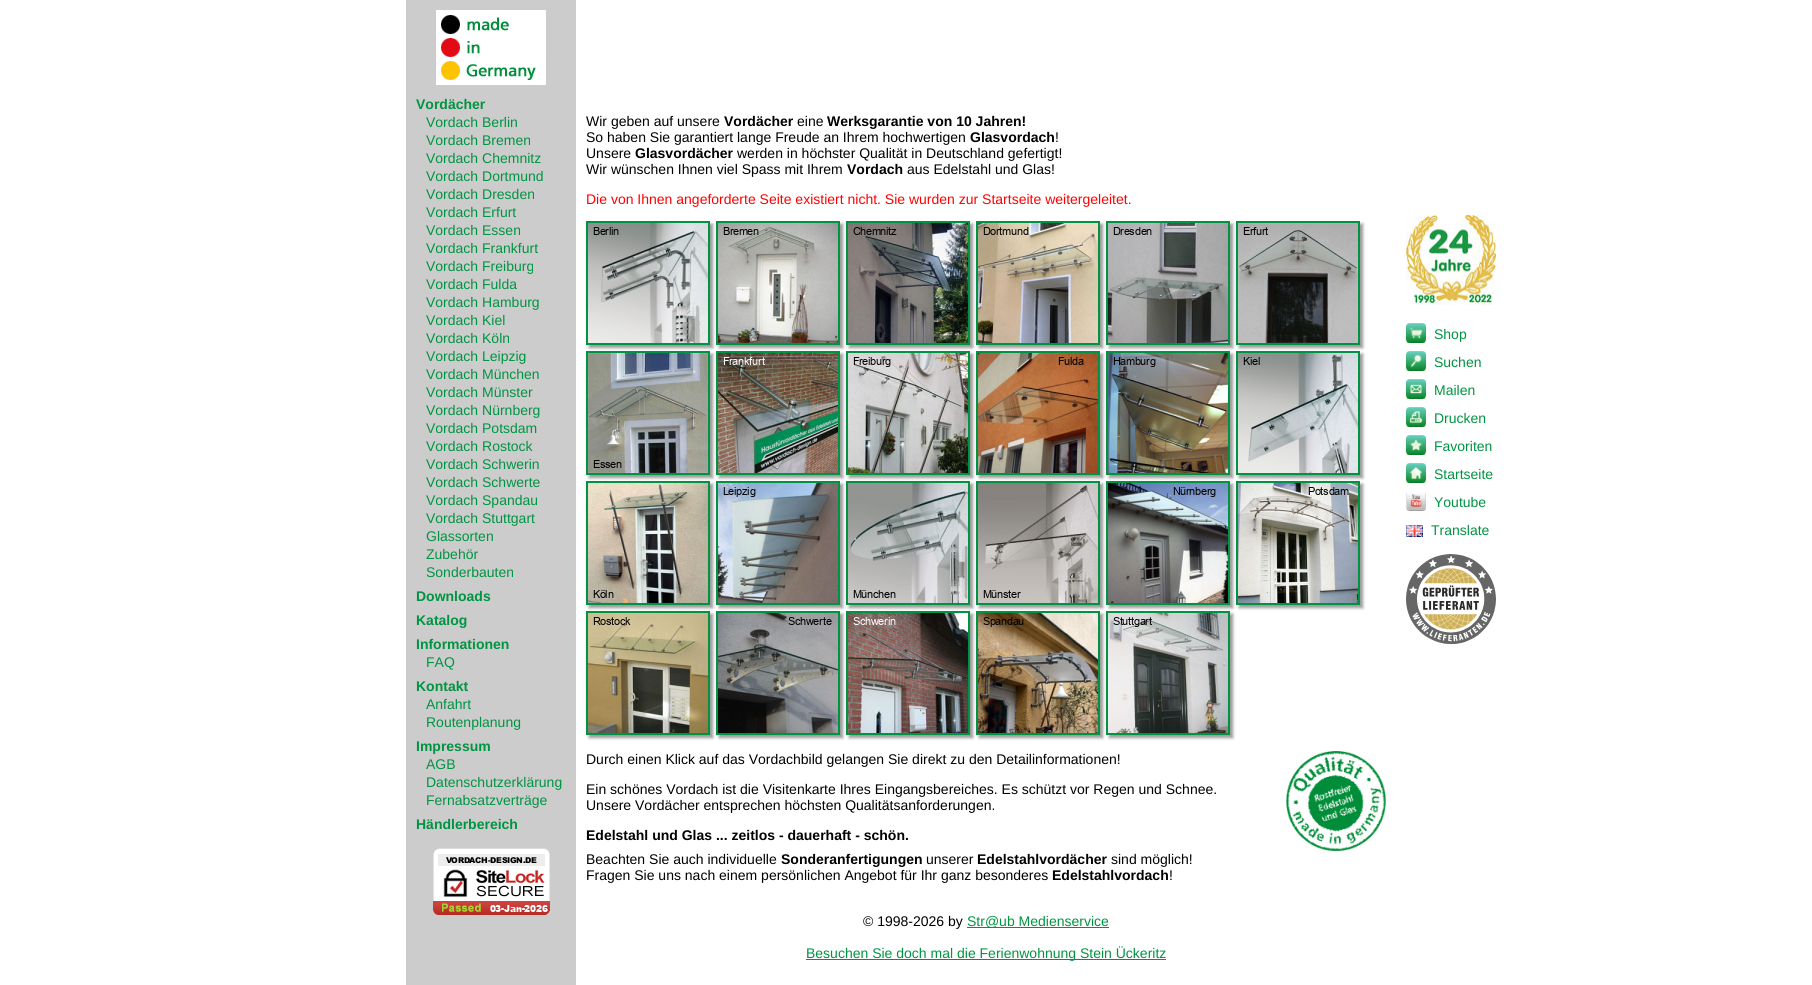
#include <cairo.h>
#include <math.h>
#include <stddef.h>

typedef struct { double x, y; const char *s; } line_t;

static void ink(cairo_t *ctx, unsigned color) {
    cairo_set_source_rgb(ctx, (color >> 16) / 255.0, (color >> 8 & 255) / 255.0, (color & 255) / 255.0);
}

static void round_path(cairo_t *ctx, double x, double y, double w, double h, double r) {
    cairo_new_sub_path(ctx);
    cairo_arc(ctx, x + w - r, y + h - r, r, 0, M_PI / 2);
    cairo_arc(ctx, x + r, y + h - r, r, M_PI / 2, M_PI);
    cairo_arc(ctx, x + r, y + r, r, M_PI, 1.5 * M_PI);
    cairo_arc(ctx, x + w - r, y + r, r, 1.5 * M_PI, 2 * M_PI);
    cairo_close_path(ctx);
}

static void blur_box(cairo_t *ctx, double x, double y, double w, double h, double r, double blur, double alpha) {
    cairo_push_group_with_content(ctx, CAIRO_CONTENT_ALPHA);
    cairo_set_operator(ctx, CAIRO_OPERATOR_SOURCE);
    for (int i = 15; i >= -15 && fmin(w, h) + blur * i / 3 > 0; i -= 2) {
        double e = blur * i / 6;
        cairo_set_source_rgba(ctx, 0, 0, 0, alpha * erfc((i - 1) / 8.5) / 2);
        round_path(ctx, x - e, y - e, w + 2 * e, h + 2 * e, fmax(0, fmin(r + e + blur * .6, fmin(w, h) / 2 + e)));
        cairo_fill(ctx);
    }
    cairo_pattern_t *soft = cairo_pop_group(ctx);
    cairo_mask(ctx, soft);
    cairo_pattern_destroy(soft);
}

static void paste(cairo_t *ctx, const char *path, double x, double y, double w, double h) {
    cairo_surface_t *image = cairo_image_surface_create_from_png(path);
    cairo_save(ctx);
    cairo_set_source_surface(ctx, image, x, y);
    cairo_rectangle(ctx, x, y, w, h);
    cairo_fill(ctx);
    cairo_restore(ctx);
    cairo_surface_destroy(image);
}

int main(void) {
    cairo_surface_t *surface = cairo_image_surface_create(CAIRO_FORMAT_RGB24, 1812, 985);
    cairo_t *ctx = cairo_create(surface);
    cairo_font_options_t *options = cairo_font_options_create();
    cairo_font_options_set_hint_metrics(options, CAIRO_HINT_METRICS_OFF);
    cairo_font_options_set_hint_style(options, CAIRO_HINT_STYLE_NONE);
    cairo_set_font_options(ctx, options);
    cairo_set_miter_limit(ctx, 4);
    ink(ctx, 0xFFFFFF);
    cairo_paint(ctx);
    ink(ctx, 0xCCCCCC);
    cairo_rectangle(ctx, 406, 0, 170, 985);
    cairo_fill(ctx);
    paste(ctx, "media/1.png", 436, 10, 110, 75);
    cairo_select_font_face(ctx, "Liberation Sans", CAIRO_FONT_SLANT_NORMAL, CAIRO_FONT_WEIGHT_BOLD);
    cairo_set_font_size(ctx, 14);
    ink(ctx, 0x009442);
    cairo_move_to(ctx, 416, 109);
    cairo_show_text(ctx, "Vordächer");
    cairo_select_font_face(ctx, "Liberation Sans", CAIRO_FONT_SLANT_NORMAL, CAIRO_FONT_WEIGHT_NORMAL);
    {
        static const line_t items[] = {
            {426, 127, "Vordach Berlin"},
            {426, 145, "Vordach Bremen"},
            {426, 163, "Vordach Chemnitz"},
            {426, 181, "Vordach Dortmund"},
            {426, 199, "Vordach Dresden"},
            {426, 217, "Vordach Erfurt"},
            {426, 235, "Vordach Essen"},
            {426, 253, "Vordach Frankfurt"},
            {426, 271, "Vordach Freiburg"},
            {426, 289, "Vordach Fulda"},
            {426, 307, "Vordach Hamburg"},
            {426, 325, "Vordach Kiel"},
            {426, 343, "Vordach Köln"},
            {426, 361, "Vordach Leipzig"},
            {426, 379, "Vordach München"},
            {426, 397, "Vordach Münster"},
            {426, 415, "Vordach Nürnberg"},
            {426, 433, "Vordach Potsdam"},
            {426, 451, "Vordach Rostock"},
            {426, 469, "Vordach Schwerin"},
            {426, 487, "Vordach Schwerte"},
            {426, 505, "Vordach Spandau"},
            {426, 523, "Vordach Stuttgart"},
            {426, 541, "Glassorten"},
            {426, 559, "Zubehör"},
            {426, 577, "Sonderbauten"},
        };
        for (size_t i = 0; i < sizeof items / sizeof *items; i++) {
            cairo_move_to(ctx, items[i].x, items[i].y);
            cairo_show_text(ctx, items[i].s);
        }
    }
    cairo_select_font_face(ctx, "Liberation Sans", CAIRO_FONT_SLANT_NORMAL, CAIRO_FONT_WEIGHT_BOLD);
    {
        static const line_t items[] = {
            {416, 601, "Downloads"},
            {416, 625, "Katalog"},
            {416, 649, "Informationen"},
        };
        for (size_t i = 0; i < sizeof items / sizeof *items; i++) {
            cairo_move_to(ctx, items[i].x, items[i].y);
            cairo_show_text(ctx, items[i].s);
        }
    }
    cairo_select_font_face(ctx, "Liberation Sans", CAIRO_FONT_SLANT_NORMAL, CAIRO_FONT_WEIGHT_NORMAL);
    cairo_move_to(ctx, 426, 667);
    cairo_show_text(ctx, "FAQ");
    cairo_select_font_face(ctx, "Liberation Sans", CAIRO_FONT_SLANT_NORMAL, CAIRO_FONT_WEIGHT_BOLD);
    cairo_move_to(ctx, 416, 691);
    cairo_show_text(ctx, "Kontakt");
    cairo_select_font_face(ctx, "Liberation Sans", CAIRO_FONT_SLANT_NORMAL, CAIRO_FONT_WEIGHT_NORMAL);
    cairo_move_to(ctx, 426, 709);
    cairo_show_text(ctx, "Anfahrt");
    cairo_move_to(ctx, 426, 727);
    cairo_show_text(ctx, "Routenplanung");
    cairo_select_font_face(ctx, "Liberation Sans", CAIRO_FONT_SLANT_NORMAL, CAIRO_FONT_WEIGHT_BOLD);
    cairo_move_to(ctx, 416, 751);
    cairo_show_text(ctx, "Impressum");
    cairo_select_font_face(ctx, "Liberation Sans", CAIRO_FONT_SLANT_NORMAL, CAIRO_FONT_WEIGHT_NORMAL);
    {
        static const line_t items[] = {
            {426, 769, "AGB"},
            {426, 787, "Datenschutzerklärung"},
            {426, 805, "Fernabsatzverträge"},
        };
        for (size_t i = 0; i < sizeof items / sizeof *items; i++) {
            cairo_move_to(ctx, items[i].x, items[i].y);
            cairo_show_text(ctx, items[i].s);
        }
    }
    cairo_select_font_face(ctx, "Liberation Sans", CAIRO_FONT_SLANT_NORMAL, CAIRO_FONT_WEIGHT_BOLD);
    cairo_move_to(ctx, 416, 829);
    cairo_show_text(ctx, "Händlerbereich");
    paste(ctx, "media/2.png", 433, 848, 117, 67);
    cairo_select_font_face(ctx, "Liberation Sans", CAIRO_FONT_SLANT_NORMAL, CAIRO_FONT_WEIGHT_NORMAL);
    ink(ctx, 0x000000);
    cairo_move_to(ctx, 586, 126);
    cairo_show_text(ctx, "Wir geben auf unsere");
    cairo_select_font_face(ctx, "Liberation Sans", CAIRO_FONT_SLANT_NORMAL, CAIRO_FONT_WEIGHT_BOLD);
    cairo_move_to(ctx, 724, 126);
    cairo_show_text(ctx, "Vordächer");
    cairo_select_font_face(ctx, "Liberation Sans", CAIRO_FONT_SLANT_NORMAL, CAIRO_FONT_WEIGHT_NORMAL);
    cairo_move_to(ctx, 797, 126);
    cairo_show_text(ctx, "eine");
    cairo_select_font_face(ctx, "Liberation Sans", CAIRO_FONT_SLANT_NORMAL, CAIRO_FONT_WEIGHT_BOLD);
    cairo_move_to(ctx, 827, 126);
    cairo_show_text(ctx, "Werksgarantie von 10 Jahren!");
    cairo_select_font_face(ctx, "Liberation Sans", CAIRO_FONT_SLANT_NORMAL, CAIRO_FONT_WEIGHT_NORMAL);
    cairo_move_to(ctx, 586, 142);
    cairo_show_text(ctx, "So haben Sie garantiert lange Freude an Ihrem hochwertigen");
    cairo_select_font_face(ctx, "Liberation Sans", CAIRO_FONT_SLANT_NORMAL, CAIRO_FONT_WEIGHT_BOLD);
    cairo_move_to(ctx, 970, 142);
    cairo_show_text(ctx, "Glasvordach");
    cairo_select_font_face(ctx, "Liberation Sans", CAIRO_FONT_SLANT_NORMAL, CAIRO_FONT_WEIGHT_NORMAL);
    cairo_move_to(ctx, 1055, 142);
    cairo_show_text(ctx, "!");
    cairo_move_to(ctx, 586, 158);
    cairo_show_text(ctx, "Unsere");
    cairo_select_font_face(ctx, "Liberation Sans", CAIRO_FONT_SLANT_NORMAL, CAIRO_FONT_WEIGHT_BOLD);
    cairo_move_to(ctx, 635, 158);
    cairo_show_text(ctx, "Glasvordächer");
    cairo_select_font_face(ctx, "Liberation Sans", CAIRO_FONT_SLANT_NORMAL, CAIRO_FONT_WEIGHT_NORMAL);
    cairo_move_to(ctx, 737, 158);
    cairo_show_text(ctx, "werden in höchster Qualität in Deutschland gefertigt!");
    cairo_move_to(ctx, 586, 174);
    cairo_show_text(ctx, "Wir wünschen Ihnen viel Spass mit Ihrem");
    cairo_select_font_face(ctx, "Liberation Sans", CAIRO_FONT_SLANT_NORMAL, CAIRO_FONT_WEIGHT_BOLD);
    cairo_move_to(ctx, 847, 174);
    cairo_show_text(ctx, "Vordach");
    cairo_select_font_face(ctx, "Liberation Sans", CAIRO_FONT_SLANT_NORMAL, CAIRO_FONT_WEIGHT_NORMAL);
    cairo_move_to(ctx, 907, 174);
    cairo_show_text(ctx, "aus Edelstahl und Glas!");
    ink(ctx, 0xFF0000);
    cairo_move_to(ctx, 586, 204);
    cairo_show_text(ctx, "Die von Ihnen angeforderte Seite existiert nicht. Sie wurden zur Startseite weitergeleitet.");
    ink(ctx, 0x999999);
    blur_box(ctx, 589, 224, 124, 124, 0, 1.5, 1);
    cairo_rectangle(ctx, 587, 222, 122, 122);
    ink(ctx, 0x009442);
    cairo_stroke(ctx);
    paste(ctx, "media/3.png", 588, 223, 120, 120);
    ink(ctx, 0x999999);
    blur_box(ctx, 719, 224, 124, 124, 0, 1.5, 1);
    cairo_rectangle(ctx, 717, 222, 122, 122);
    ink(ctx, 0x009442);
    cairo_stroke(ctx);
    paste(ctx, "media/4.png", 718, 223, 120, 120);
    ink(ctx, 0x999999);
    blur_box(ctx, 849, 224, 124, 124, 0, 1.5, 1);
    cairo_rectangle(ctx, 847, 222, 122, 122);
    ink(ctx, 0x009442);
    cairo_stroke(ctx);
    paste(ctx, "media/5.png", 848, 223, 120, 120);
    ink(ctx, 0x999999);
    blur_box(ctx, 979, 224, 124, 124, 0, 1.5, 1);
    cairo_rectangle(ctx, 977, 222, 122, 122);
    ink(ctx, 0x009442);
    cairo_stroke(ctx);
    paste(ctx, "media/6.png", 978, 223, 120, 120);
    ink(ctx, 0x999999);
    blur_box(ctx, 1109, 224, 124, 124, 0, 1.5, 1);
    cairo_rectangle(ctx, 1107, 222, 122, 122);
    ink(ctx, 0x009442);
    cairo_stroke(ctx);
    paste(ctx, "media/7.png", 1108, 223, 120, 120);
    ink(ctx, 0x999999);
    blur_box(ctx, 1239, 224, 124, 124, 0, 1.5, 1);
    cairo_rectangle(ctx, 1237, 222, 122, 122);
    ink(ctx, 0x009442);
    cairo_stroke(ctx);
    paste(ctx, "media/8.png", 1238, 223, 120, 120);
    ink(ctx, 0x999999);
    blur_box(ctx, 589, 354, 124, 124, 0, 1.5, 1);
    cairo_rectangle(ctx, 587, 352, 122, 122);
    ink(ctx, 0x009442);
    cairo_stroke(ctx);
    paste(ctx, "media/9.png", 588, 353, 120, 120);
    ink(ctx, 0x999999);
    blur_box(ctx, 719, 354, 124, 124, 0, 1.5, 1);
    cairo_rectangle(ctx, 717, 352, 122, 122);
    ink(ctx, 0x009442);
    cairo_stroke(ctx);
    paste(ctx, "media/10.png", 718, 353, 120, 120);
    ink(ctx, 0x999999);
    blur_box(ctx, 849, 354, 124, 124, 0, 1.5, 1);
    cairo_rectangle(ctx, 847, 352, 122, 122);
    ink(ctx, 0x009442);
    cairo_stroke(ctx);
    paste(ctx, "media/11.png", 848, 353, 120, 120);
    ink(ctx, 0x999999);
    blur_box(ctx, 979, 354, 124, 124, 0, 1.5, 1);
    cairo_rectangle(ctx, 977, 352, 122, 122);
    ink(ctx, 0x009442);
    cairo_stroke(ctx);
    paste(ctx, "media/12.png", 978, 353, 120, 120);
    ink(ctx, 0x999999);
    blur_box(ctx, 1109, 354, 124, 124, 0, 1.5, 1);
    cairo_rectangle(ctx, 1107, 352, 122, 122);
    ink(ctx, 0x009442);
    cairo_stroke(ctx);
    paste(ctx, "media/13.png", 1108, 353, 120, 120);
    ink(ctx, 0x999999);
    blur_box(ctx, 1239, 354, 124, 124, 0, 1.5, 1);
    cairo_rectangle(ctx, 1237, 352, 122, 122);
    ink(ctx, 0x009442);
    cairo_stroke(ctx);
    paste(ctx, "media/14.png", 1238, 353, 120, 120);
    ink(ctx, 0x999999);
    blur_box(ctx, 589, 484, 124, 124, 0, 1.5, 1);
    cairo_rectangle(ctx, 587, 482, 122, 122);
    ink(ctx, 0x009442);
    cairo_stroke(ctx);
    paste(ctx, "media/15.png", 588, 483, 120, 120);
    ink(ctx, 0x999999);
    blur_box(ctx, 719, 484, 124, 124, 0, 1.5, 1);
    cairo_rectangle(ctx, 717, 482, 122, 122);
    ink(ctx, 0x009442);
    cairo_stroke(ctx);
    paste(ctx, "media/16.png", 718, 483, 120, 120);
    ink(ctx, 0x999999);
    blur_box(ctx, 849, 484, 124, 124, 0, 1.5, 1);
    cairo_rectangle(ctx, 847, 482, 122, 122);
    ink(ctx, 0x009442);
    cairo_stroke(ctx);
    paste(ctx, "media/17.png", 848, 483, 120, 120);
    ink(ctx, 0x999999);
    blur_box(ctx, 979, 484, 124, 124, 0, 1.5, 1);
    cairo_rectangle(ctx, 977, 482, 122, 122);
    ink(ctx, 0x009442);
    cairo_stroke(ctx);
    paste(ctx, "media/18.png", 978, 483, 120, 120);
    ink(ctx, 0x999999);
    blur_box(ctx, 1109, 484, 124, 124, 0, 1.5, 1);
    cairo_rectangle(ctx, 1107, 482, 122, 122);
    ink(ctx, 0x009442);
    cairo_stroke(ctx);
    paste(ctx, "media/19.png", 1108, 483, 120, 120);
    ink(ctx, 0x999999);
    blur_box(ctx, 1239, 484, 124, 124, 0, 1.5, 1);
    cairo_rectangle(ctx, 1237, 482, 122, 122);
    ink(ctx, 0x009442);
    cairo_stroke(ctx);
    paste(ctx, "media/20.png", 1238, 483, 120, 120);
    ink(ctx, 0x999999);
    blur_box(ctx, 589, 614, 124, 124, 0, 1.5, 1);
    cairo_rectangle(ctx, 587, 612, 122, 122);
    ink(ctx, 0x009442);
    cairo_stroke(ctx);
    paste(ctx, "media/21.png", 588, 613, 120, 120);
    ink(ctx, 0x999999);
    blur_box(ctx, 719, 614, 124, 124, 0, 1.5, 1);
    cairo_rectangle(ctx, 717, 612, 122, 122);
    ink(ctx, 0x009442);
    cairo_stroke(ctx);
    paste(ctx, "media/22.png", 718, 613, 120, 120);
    ink(ctx, 0x999999);
    blur_box(ctx, 849, 614, 124, 124, 0, 1.5, 1);
    cairo_rectangle(ctx, 847, 612, 122, 122);
    ink(ctx, 0x009442);
    cairo_stroke(ctx);
    paste(ctx, "media/23.png", 848, 613, 120, 120);
    ink(ctx, 0x999999);
    blur_box(ctx, 979, 614, 124, 124, 0, 1.5, 1);
    cairo_rectangle(ctx, 977, 612, 122, 122);
    ink(ctx, 0x009442);
    cairo_stroke(ctx);
    paste(ctx, "media/24.png", 978, 613, 120, 120);
    ink(ctx, 0x999999);
    blur_box(ctx, 1109, 614, 124, 124, 0, 1.5, 1);
    cairo_rectangle(ctx, 1107, 612, 122, 122);
    ink(ctx, 0x009442);
    cairo_stroke(ctx);
    paste(ctx, "media/25.png", 1108, 613, 120, 120);
    ink(ctx, 0x000000);
    {
        static const line_t items[] = {
            {586, 764, "Durch einen Klick auf das Vordachbild gelangen Sie direkt zu den Detailinformationen!"},
            {586, 794, "Ein schönes Vordach ist die Visitenkarte Ihres Eingangsbereiches. Es schützt vor Regen und Schnee."},
            {586, 810, "Unsere Vordächer entsprechen höchsten Qualitätsanforderungen."},
        };
        for (size_t i = 0; i < sizeof items / sizeof *items; i++) {
            cairo_move_to(ctx, items[i].x, items[i].y);
            cairo_show_text(ctx, items[i].s);
        }
    }
    cairo_select_font_face(ctx, "Liberation Sans", CAIRO_FONT_SLANT_NORMAL, CAIRO_FONT_WEIGHT_BOLD);
    cairo_move_to(ctx, 586, 840);
    cairo_show_text(ctx, "Edelstahl und Glas ... zeitlos - dauerhaft - schön.");
    paste(ctx, "media/26.png", 1286, 751, 100, 100);
    cairo_select_font_face(ctx, "Liberation Sans", CAIRO_FONT_SLANT_NORMAL, CAIRO_FONT_WEIGHT_NORMAL);
    cairo_move_to(ctx, 586, 864);
    cairo_show_text(ctx, "Beachten Sie auch individuelle");
    cairo_select_font_face(ctx, "Liberation Sans", CAIRO_FONT_SLANT_NORMAL, CAIRO_FONT_WEIGHT_BOLD);
    cairo_move_to(ctx, 781, 864);
    cairo_show_text(ctx, "Sonderanfertigungen");
    cairo_select_font_face(ctx, "Liberation Sans", CAIRO_FONT_SLANT_NORMAL, CAIRO_FONT_WEIGHT_NORMAL);
    cairo_move_to(ctx, 926, 864);
    cairo_show_text(ctx, "unserer");
    cairo_select_font_face(ctx, "Liberation Sans", CAIRO_FONT_SLANT_NORMAL, CAIRO_FONT_WEIGHT_BOLD);
    cairo_move_to(ctx, 977, 864);
    cairo_show_text(ctx, "Edelstahlvordächer");
    cairo_select_font_face(ctx, "Liberation Sans", CAIRO_FONT_SLANT_NORMAL, CAIRO_FONT_WEIGHT_NORMAL);
    cairo_move_to(ctx, 1111, 864);
    cairo_show_text(ctx, "sind möglich!");
    cairo_move_to(ctx, 586, 880);
    cairo_show_text(ctx, "Fragen Sie uns nach einem persönlichen Angebot für Ihr ganz besonderes");
    cairo_select_font_face(ctx, "Liberation Sans", CAIRO_FONT_SLANT_NORMAL, CAIRO_FONT_WEIGHT_BOLD);
    cairo_move_to(ctx, 1052, 880);
    cairo_show_text(ctx, "Edelstahlvordach");
    cairo_select_font_face(ctx, "Liberation Sans", CAIRO_FONT_SLANT_NORMAL, CAIRO_FONT_WEIGHT_NORMAL);
    cairo_move_to(ctx, 1169, 880);
    cairo_show_text(ctx, "!");
    cairo_move_to(ctx, 863, 926);
    cairo_show_text(ctx, "© 1998-2026 by");
    ink(ctx, 0x009442);
    cairo_rectangle(ctx, 967, 927, 142, 1);
    cairo_fill(ctx);
    cairo_move_to(ctx, 967, 926);
    cairo_show_text(ctx, "Str@ub Medienservice");
    cairo_rectangle(ctx, 806, 959, 360, 1);
    cairo_fill(ctx);
    cairo_move_to(ctx, 806, 958);
    cairo_show_text(ctx, "Besuchen Sie doch mal die Ferienwohnung Stein Ückeritz");
    paste(ctx, "media/27.png", 1406, 215, 90, 90);
    paste(ctx, "media/28.png", 1406, 323, 20, 20);
    cairo_move_to(ctx, 1434, 339);
    cairo_show_text(ctx, "Shop");
    paste(ctx, "media/29.png", 1406, 351, 20, 20);
    cairo_move_to(ctx, 1434, 367);
    cairo_show_text(ctx, "Suchen");
    paste(ctx, "media/30.png", 1406, 379, 20, 20);
    cairo_move_to(ctx, 1434, 395);
    cairo_show_text(ctx, "Mailen");
    paste(ctx, "media/31.png", 1406, 407, 20, 20);
    cairo_move_to(ctx, 1434, 423);
    cairo_show_text(ctx, "Drucken");
    paste(ctx, "media/32.png", 1406, 435, 20, 20);
    cairo_move_to(ctx, 1434, 451);
    cairo_show_text(ctx, "Favoriten");
    paste(ctx, "media/33.png", 1406, 463, 20, 20);
    cairo_move_to(ctx, 1434, 479);
    cairo_show_text(ctx, "Startseite");
    paste(ctx, "media/34.png", 1406, 492, 20, 19);
    cairo_move_to(ctx, 1434, 507);
    cairo_show_text(ctx, "Youtube");
    paste(ctx, "media/35.png", 1406, 525, 17, 12);
    cairo_move_to(ctx, 1431, 535);
    cairo_show_text(ctx, "Translate");
    paste(ctx, "media/36.png", 1406, 554, 90, 90);
    cairo_surface_write_to_png(surface, "image.png");
    cairo_font_options_destroy(options);
    cairo_destroy(ctx);
    cairo_surface_destroy(surface);
    return 0;
}
